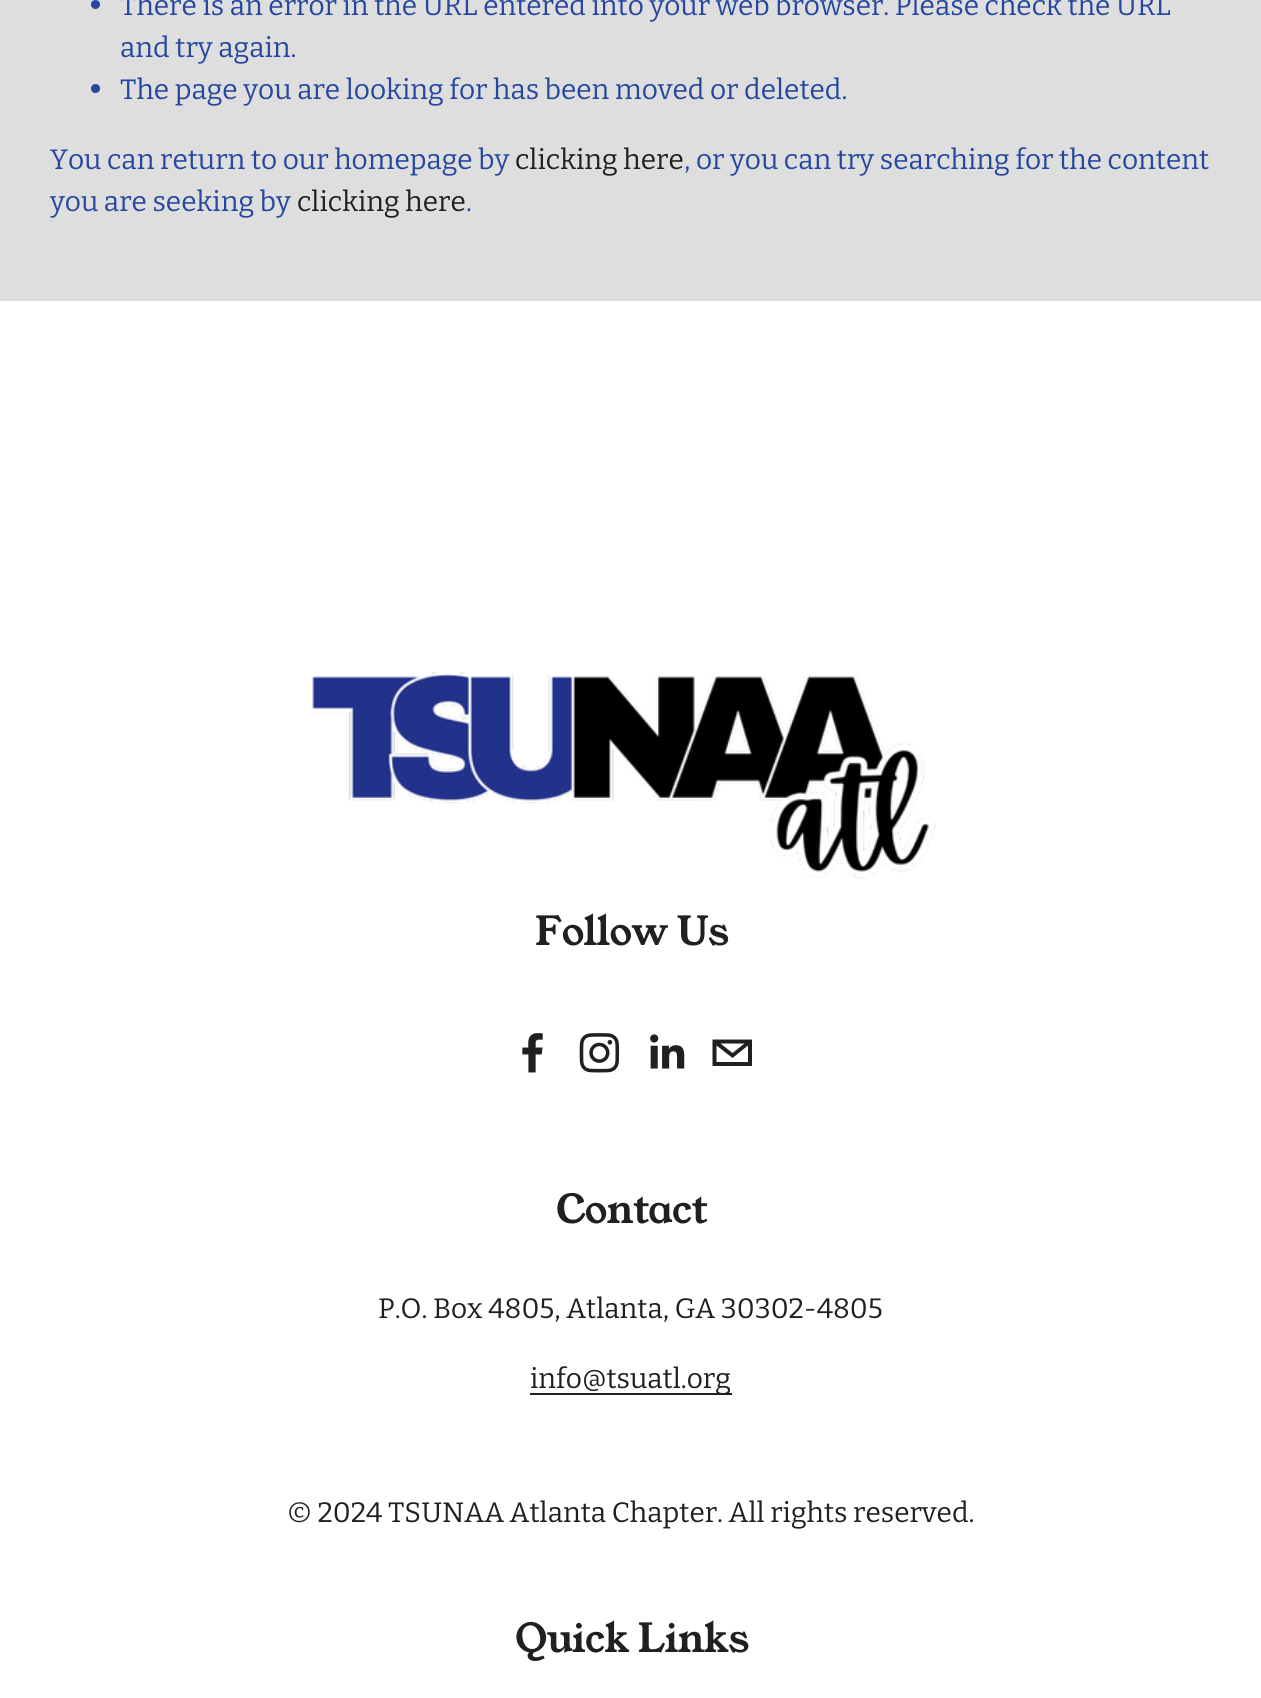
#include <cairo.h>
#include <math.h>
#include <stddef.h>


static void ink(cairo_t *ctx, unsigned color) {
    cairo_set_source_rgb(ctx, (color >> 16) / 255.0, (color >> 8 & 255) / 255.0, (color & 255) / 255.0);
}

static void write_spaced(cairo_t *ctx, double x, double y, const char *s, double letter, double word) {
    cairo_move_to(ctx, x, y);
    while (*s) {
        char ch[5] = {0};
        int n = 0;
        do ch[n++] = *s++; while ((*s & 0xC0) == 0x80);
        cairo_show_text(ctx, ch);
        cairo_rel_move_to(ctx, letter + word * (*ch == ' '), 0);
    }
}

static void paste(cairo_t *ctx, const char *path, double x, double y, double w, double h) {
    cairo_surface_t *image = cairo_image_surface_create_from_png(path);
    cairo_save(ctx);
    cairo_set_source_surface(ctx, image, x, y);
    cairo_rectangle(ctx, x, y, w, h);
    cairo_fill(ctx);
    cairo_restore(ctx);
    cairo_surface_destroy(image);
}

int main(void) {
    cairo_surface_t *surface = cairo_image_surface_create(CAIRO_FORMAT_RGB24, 1261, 1698);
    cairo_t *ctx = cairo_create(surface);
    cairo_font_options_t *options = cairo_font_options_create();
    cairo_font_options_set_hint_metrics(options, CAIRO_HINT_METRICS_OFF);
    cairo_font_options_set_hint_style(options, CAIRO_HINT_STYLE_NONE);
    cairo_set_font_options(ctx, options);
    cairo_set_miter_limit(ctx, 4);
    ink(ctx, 0xDEDEDE);
    cairo_paint(ctx);
    ink(ctx, 0x2547A0);
    cairo_arc(ctx, 95.5, 4.5, 4.5, 0, 2 * M_PI);
    cairo_fill(ctx);
    cairo_select_font_face(ctx, "Bitter", CAIRO_FONT_SLANT_NORMAL, CAIRO_FONT_WEIGHT_NORMAL);
    cairo_set_font_size(ctx, 28);
    cairo_move_to(ctx, 120, 15);
    cairo_show_text(ctx, "There is an error in the URL entered into your web browser. Please check the URL");
    cairo_move_to(ctx, 120, 57);
    cairo_show_text(ctx, "and try again.");
    cairo_new_path(ctx);
    cairo_arc(ctx, 95.5, 88.5, 4.5, 0, 2 * M_PI);
    cairo_fill(ctx);
    cairo_move_to(ctx, 120, 99);
    cairo_show_text(ctx, "The page you are looking for has been moved or deleted.");
    cairo_move_to(ctx, 50, 169);
    cairo_show_text(ctx, "You can return to our homepage by");
    ink(ctx, 0x212020);
    cairo_move_to(ctx, 515, 169);
    cairo_show_text(ctx, "clicking here");
    ink(ctx, 0x2547A0);
    cairo_move_to(ctx, 684, 169);
    cairo_show_text(ctx, ", or you can try searching for the content");
    cairo_move_to(ctx, 50, 211);
    cairo_show_text(ctx, "you are seeking by");
    ink(ctx, 0x212020);
    cairo_move_to(ctx, 297, 211);
    cairo_show_text(ctx, "clicking here");
    ink(ctx, 0x2547A0);
    cairo_move_to(ctx, 466, 211);
    cairo_show_text(ctx, ".");
    ink(ctx, 0xFFFFFF);
    cairo_rectangle(ctx, 0, 301, 1261, 1397);
    cairo_fill(ctx);
    paste(ctx, "media/1.png", 312, 672, 624, 207);
    cairo_select_font_face(ctx, "Young Serif", CAIRO_FONT_SLANT_NORMAL, CAIRO_FONT_WEIGHT_NORMAL);
    cairo_set_font_size(ctx, 39.5);
    ink(ctx, 0x212020);
    write_spaced(ctx, 535, 945, "Follow Us", -0.75, 0);
    paste(ctx, "media/2.png", 522, 1033, 21, 40);
    paste(ctx, "media/3.png", 579, 1033, 41, 40);
    paste(ctx, "media/4.png", 650, 1034, 35, 35);
    cairo_new_path(ctx);
    cairo_move_to(ctx, 712.5, 1039.5);
    cairo_line_to(ctx, 712.5, 1066);
    cairo_line_to(ctx, 752, 1066);
    cairo_line_to(ctx, 752, 1039.5);
    cairo_close_path(ctx);
    cairo_move_to(ctx, 744.5, 1043.5);
    cairo_line_to(ctx, 732.5, 1053);
    cairo_line_to(ctx, 720.5, 1043.5);
    cairo_close_path(ctx);
    cairo_move_to(ctx, 716.5, 1062);
    cairo_line_to(ctx, 716.5, 1045.5);
    cairo_line_to(ctx, 732.5, 1058);
    cairo_line_to(ctx, 748, 1045.5);
    cairo_line_to(ctx, 748, 1062);
    cairo_close_path(ctx);
    cairo_fill(ctx);
    write_spaced(ctx, 556, 1223, "Contact", -0.75, 0);
    cairo_select_font_face(ctx, "Bitter", CAIRO_FONT_SLANT_NORMAL, CAIRO_FONT_WEIGHT_NORMAL);
    cairo_set_font_size(ctx, 28);
    cairo_move_to(ctx, 378, 1318);
    cairo_show_text(ctx, "P.O. Box 4805, Atlanta, GA 30302-4805");
    cairo_rectangle(ctx, 530, 1393, 202, 2);
    cairo_fill(ctx);
    cairo_move_to(ctx, 530, 1388);
    cairo_show_text(ctx, "info@tsuatl.org");
    cairo_move_to(ctx, 287, 1522);
    cairo_show_text(ctx, "© 2024 TSUNAA Atlanta Chapter. All rights reserved.");
    cairo_select_font_face(ctx, "Young Serif", CAIRO_FONT_SLANT_NORMAL, CAIRO_FONT_WEIGHT_NORMAL);
    cairo_set_font_size(ctx, 39.5);
    write_spaced(ctx, 515, 1652, "Quick Links", -0.75, 0);
    cairo_surface_write_to_png(surface, "image.png");
    cairo_font_options_destroy(options);
    cairo_destroy(ctx);
    cairo_surface_destroy(surface);
    return 0;
}
